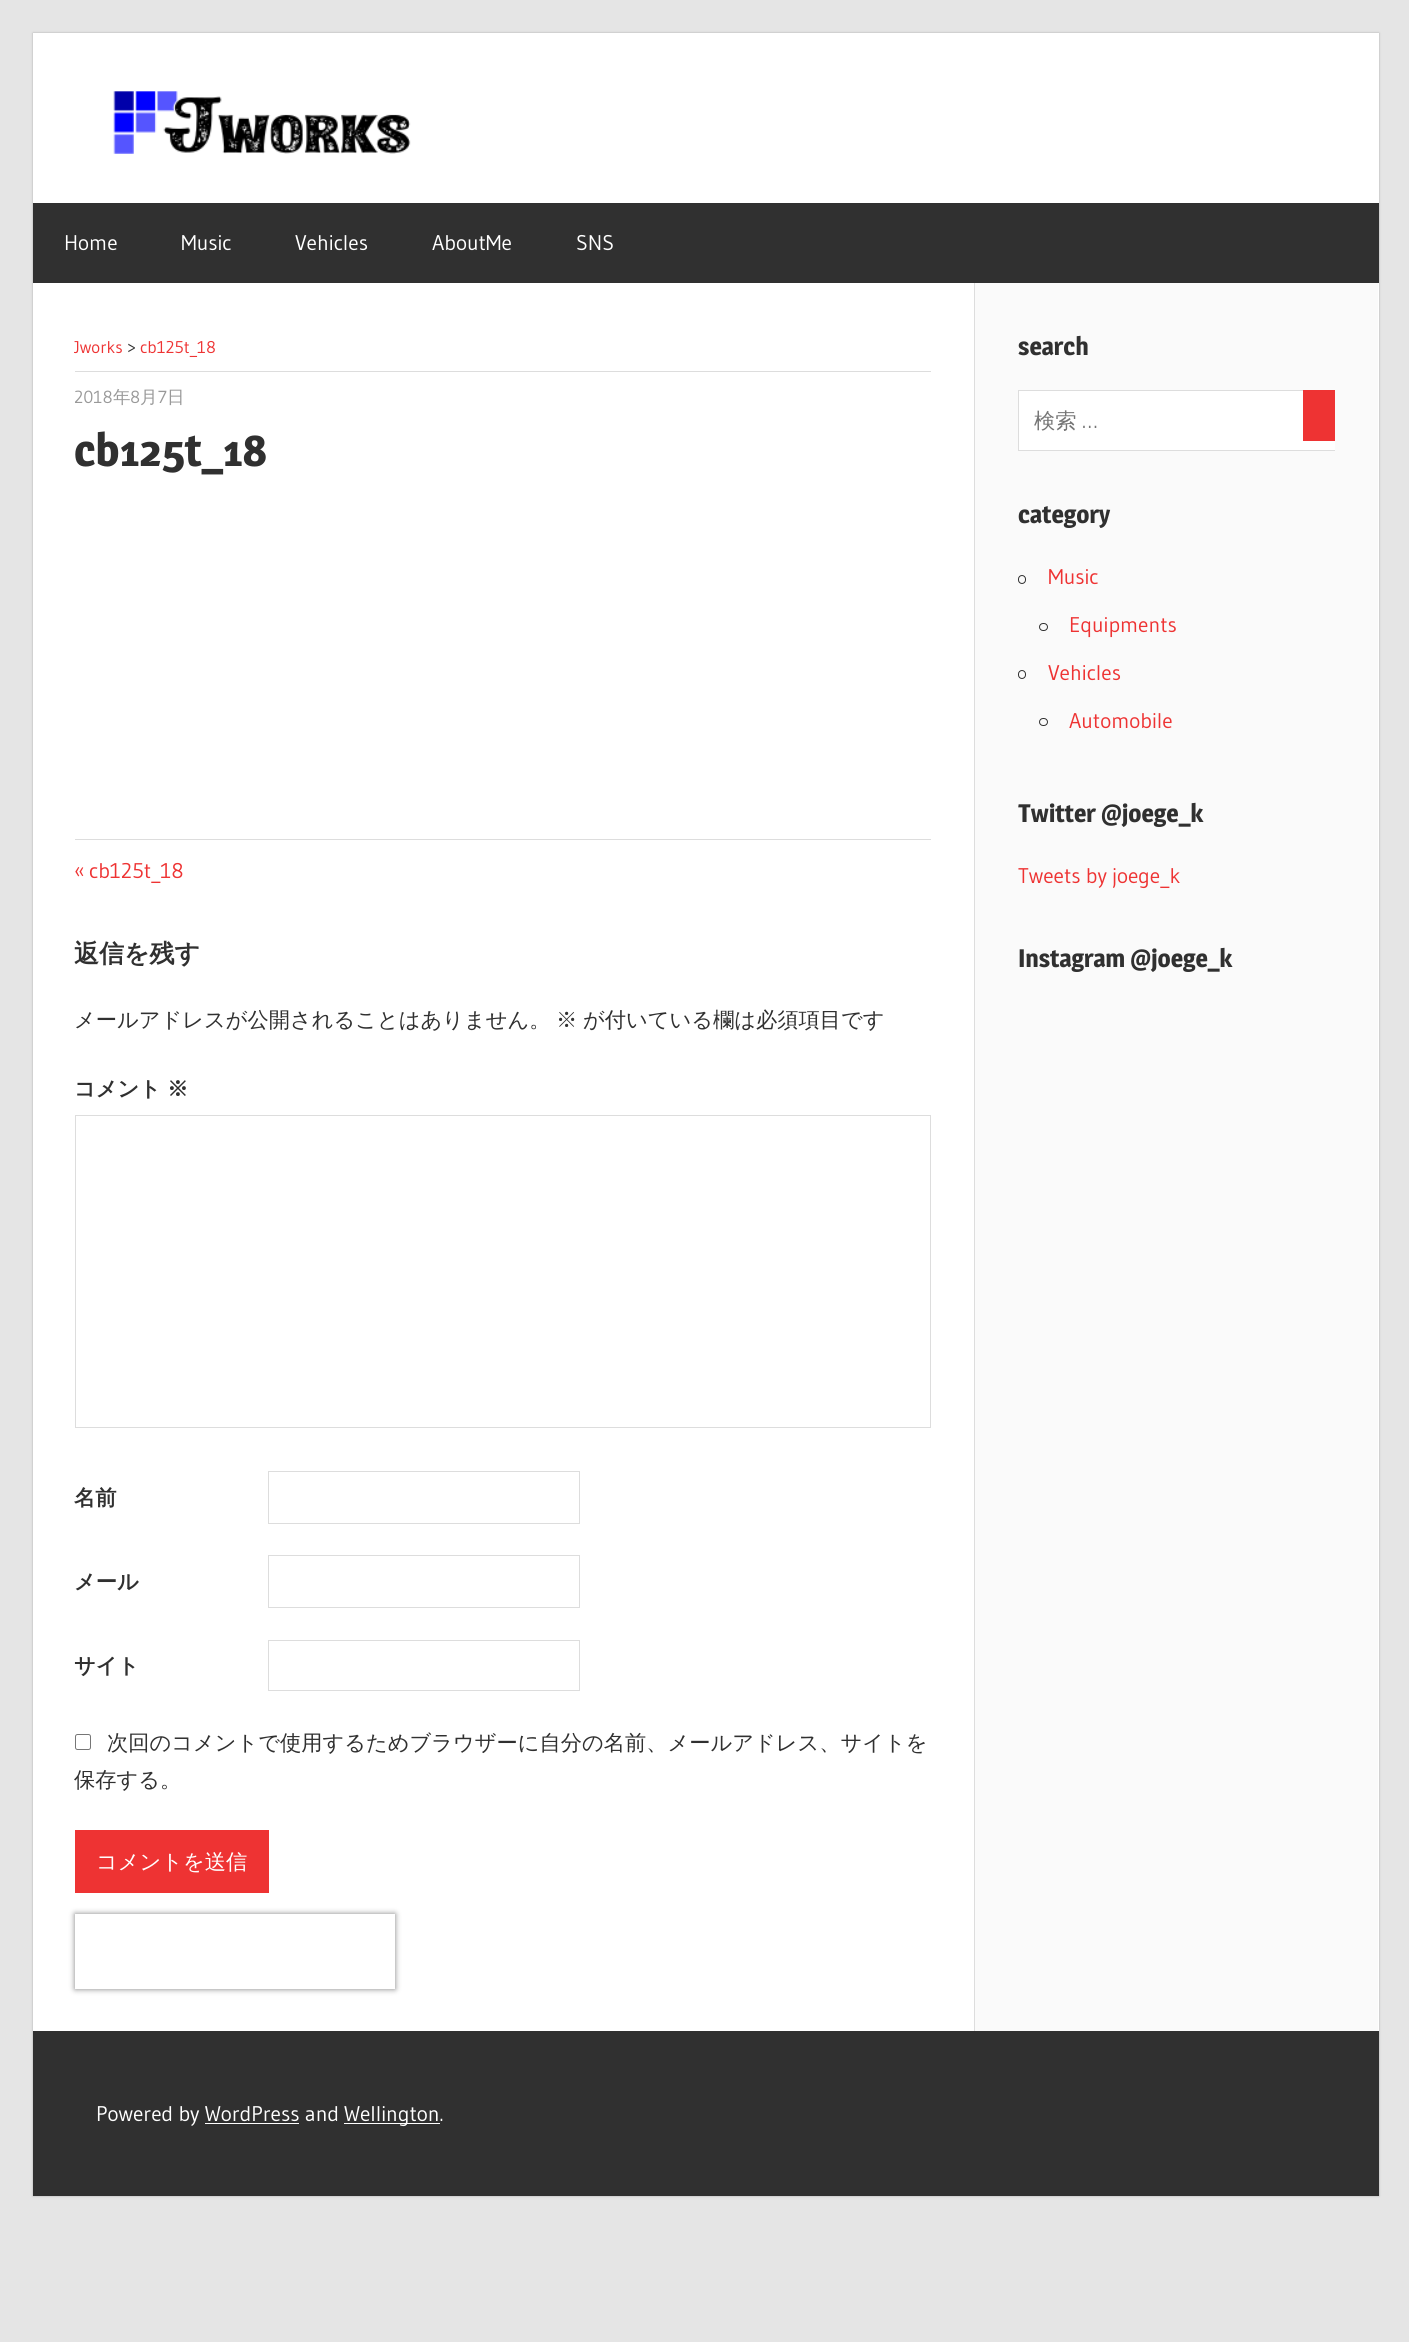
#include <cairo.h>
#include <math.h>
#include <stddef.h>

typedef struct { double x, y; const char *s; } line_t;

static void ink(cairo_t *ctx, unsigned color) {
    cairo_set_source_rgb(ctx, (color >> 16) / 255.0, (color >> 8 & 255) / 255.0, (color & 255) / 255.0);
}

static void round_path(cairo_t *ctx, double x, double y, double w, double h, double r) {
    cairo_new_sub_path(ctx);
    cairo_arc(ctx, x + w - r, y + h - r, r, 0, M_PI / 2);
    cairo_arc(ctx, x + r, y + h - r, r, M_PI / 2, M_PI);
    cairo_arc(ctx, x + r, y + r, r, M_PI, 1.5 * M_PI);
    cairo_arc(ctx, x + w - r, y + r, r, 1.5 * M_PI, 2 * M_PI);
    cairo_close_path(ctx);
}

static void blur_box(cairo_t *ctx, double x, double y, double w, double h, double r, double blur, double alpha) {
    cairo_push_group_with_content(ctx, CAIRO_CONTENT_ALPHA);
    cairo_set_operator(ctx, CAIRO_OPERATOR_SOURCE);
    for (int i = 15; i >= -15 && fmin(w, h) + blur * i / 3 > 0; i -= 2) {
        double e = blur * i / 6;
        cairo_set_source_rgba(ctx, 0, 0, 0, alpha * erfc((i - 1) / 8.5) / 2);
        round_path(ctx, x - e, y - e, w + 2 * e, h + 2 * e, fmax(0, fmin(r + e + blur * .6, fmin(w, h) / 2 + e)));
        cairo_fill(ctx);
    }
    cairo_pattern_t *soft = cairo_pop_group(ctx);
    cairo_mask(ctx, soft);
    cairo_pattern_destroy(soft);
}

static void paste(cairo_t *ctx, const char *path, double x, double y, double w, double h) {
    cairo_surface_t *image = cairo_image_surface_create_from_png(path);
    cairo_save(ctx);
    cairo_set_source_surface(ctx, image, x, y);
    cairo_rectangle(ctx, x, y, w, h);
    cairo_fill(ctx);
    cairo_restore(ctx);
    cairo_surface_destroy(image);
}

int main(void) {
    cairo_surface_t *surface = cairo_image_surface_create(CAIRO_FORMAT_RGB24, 1409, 2342);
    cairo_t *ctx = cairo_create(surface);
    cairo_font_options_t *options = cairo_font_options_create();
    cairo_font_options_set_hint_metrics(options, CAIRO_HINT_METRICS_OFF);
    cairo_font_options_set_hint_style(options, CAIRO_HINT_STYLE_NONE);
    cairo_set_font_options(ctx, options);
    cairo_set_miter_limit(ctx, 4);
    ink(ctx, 0xE5E5E5);
    cairo_paint(ctx);
    ink(ctx, 0xAAAAAA);
    blur_box(ctx, 33, 33, 1346, 2163, 0, 1, 1);
    ink(ctx, 0xFFFFFF);
    cairo_rectangle(ctx, 33, 33, 1346, 1998);
    cairo_fill(ctx);
    paste(ctx, "media/1.png", 113, 91, 298, 63);
    ink(ctx, 0x303030);
    cairo_rectangle(ctx, 33, 203, 1346, 80);
    cairo_fill(ctx);
    cairo_select_font_face(ctx, "Gudea", CAIRO_FONT_SLANT_NORMAL, CAIRO_FONT_WEIGHT_NORMAL);
    cairo_set_font_size(ctx, 21.25);
    ink(ctx, 0xFFFFFF);
    {
        static const line_t items[] = {
            {64, 250, "Home"},
            {181, 250, "Music"},
            {295, 250, "Vehicles"},
            {432, 250, "AboutMe"},
            {576, 250, "SNS"},
        };
        for (size_t i = 0; i < sizeof items / sizeof *items; i++) {
            cairo_move_to(ctx, items[i].x, items[i].y);
            cairo_show_text(ctx, items[i].s);
        }
    }
    ink(ctx, 0xDDDDDD);
    cairo_rectangle(ctx, 75, 371, 856, 1);
    cairo_fill(ctx);
    cairo_set_font_size(ctx, 17);
    ink(ctx, 0xEE3333);
    cairo_move_to(ctx, 74, 353);
    cairo_show_text(ctx, "Jworks");
    ink(ctx, 0x303030);
    cairo_move_to(ctx, 127, 353);
    cairo_show_text(ctx, ">");
    ink(ctx, 0xEE3333);
    cairo_move_to(ctx, 140, 353);
    cairo_show_text(ctx, "cb125t_18");
    cairo_set_font_size(ctx, 17.5);
    ink(ctx, 0x999999);
    cairo_move_to(ctx, 74, 403);
    cairo_show_text(ctx, "2018");
    cairo_select_font_face(ctx, "WenQuanYi Zen Hei Medium", CAIRO_FONT_SLANT_NORMAL, CAIRO_FONT_WEIGHT_NORMAL);
    cairo_move_to(ctx, 113, 403);
    cairo_show_text(ctx, "年");
    cairo_select_font_face(ctx, "Gudea", CAIRO_FONT_SLANT_NORMAL, CAIRO_FONT_WEIGHT_NORMAL);
    cairo_move_to(ctx, 130, 403);
    cairo_show_text(ctx, "8");
    cairo_select_font_face(ctx, "WenQuanYi Zen Hei Medium", CAIRO_FONT_SLANT_NORMAL, CAIRO_FONT_WEIGHT_NORMAL);
    cairo_move_to(ctx, 140, 403);
    cairo_show_text(ctx, "月");
    cairo_select_font_face(ctx, "Gudea", CAIRO_FONT_SLANT_NORMAL, CAIRO_FONT_WEIGHT_NORMAL);
    cairo_move_to(ctx, 158, 403);
    cairo_show_text(ctx, "7");
    cairo_select_font_face(ctx, "WenQuanYi Zen Hei Medium", CAIRO_FONT_SLANT_NORMAL, CAIRO_FONT_WEIGHT_NORMAL);
    cairo_move_to(ctx, 167, 403);
    cairo_show_text(ctx, "日");
    cairo_select_font_face(ctx, "Magra SemiBold", CAIRO_FONT_SLANT_NORMAL, CAIRO_FONT_WEIGHT_NORMAL);
    cairo_set_font_size(ctx, 45);
    ink(ctx, 0x303030);
    cairo_move_to(ctx, 74, 466);
    cairo_show_text(ctx, "cb125t_18");
    ink(ctx, 0xDDDDDD);
    cairo_rectangle(ctx, 75, 839, 856, 1);
    cairo_fill(ctx);
    cairo_select_font_face(ctx, "Gudea", CAIRO_FONT_SLANT_NORMAL, CAIRO_FONT_WEIGHT_NORMAL);
    cairo_set_font_size(ctx, 21.25);
    ink(ctx, 0xEE3333);
    cairo_move_to(ctx, 74, 878);
    cairo_show_text(ctx, "«");
    cairo_move_to(ctx, 89, 878);
    cairo_show_text(ctx, "cb125t_18");
    cairo_select_font_face(ctx, "WenQuanYi Zen Hei", CAIRO_FONT_SLANT_NORMAL, CAIRO_FONT_WEIGHT_BOLD);
    cairo_set_font_size(ctx, 25);
    ink(ctx, 0x303030);
    cairo_move_to(ctx, 74, 962);
    cairo_show_text(ctx, "返信を残す");
    cairo_select_font_face(ctx, "WenQuanYi Zen Hei Medium", CAIRO_FONT_SLANT_NORMAL, CAIRO_FONT_WEIGHT_NORMAL);
    cairo_set_font_size(ctx, 21.25);
    {
        static const line_t items[] = {
            {74, 1027, "メールアドレスが公開されることはありません。"},
            {556, 1027, "※"},
            {583, 1027, "が付いている欄は必須項目です"},
        };
        for (size_t i = 0; i < sizeof items / sizeof *items; i++) {
            cairo_move_to(ctx, items[i].x, items[i].y);
            cairo_show_text(ctx, items[i].s);
        }
    }
    cairo_select_font_face(ctx, "WenQuanYi Zen Hei", CAIRO_FONT_SLANT_NORMAL, CAIRO_FONT_WEIGHT_BOLD);
    cairo_move_to(ctx, 74, 1096);
    cairo_show_text(ctx, "コメント");
    cairo_move_to(ctx, 167, 1096);
    cairo_show_text(ctx, "※");
    cairo_rectangle(ctx, 75.5, 1115.5, 855, 312);
    ink(ctx, 0xDDDDDD);
    cairo_set_line_width(ctx, 1);
    cairo_stroke(ctx);
    ink(ctx, 0x303030);
    cairo_move_to(ctx, 74, 1505);
    cairo_show_text(ctx, "名前");
    cairo_rectangle(ctx, 268.5, 1471.5, 311, 52);
    ink(ctx, 0xDDDDDD);
    cairo_stroke(ctx);
    ink(ctx, 0x303030);
    cairo_move_to(ctx, 74, 1589);
    cairo_show_text(ctx, "メール");
    cairo_rectangle(ctx, 268.5, 1555.5, 311, 52);
    ink(ctx, 0xDDDDDD);
    cairo_stroke(ctx);
    ink(ctx, 0x303030);
    cairo_move_to(ctx, 74, 1673);
    cairo_show_text(ctx, "サイト");
    cairo_rectangle(ctx, 268.5, 1640.5, 311, 50);
    ink(ctx, 0xDDDDDD);
    cairo_stroke(ctx);
    round_path(ctx, 75.5, 1734.5, 15, 15, 2);
    ink(ctx, 0x767676);
    cairo_stroke(ctx);
    cairo_select_font_face(ctx, "WenQuanYi Zen Hei Medium", CAIRO_FONT_SLANT_NORMAL, CAIRO_FONT_WEIGHT_NORMAL);
    ink(ctx, 0x303030);
    cairo_move_to(ctx, 107, 1750);
    cairo_show_text(ctx, "次回のコメントで使用するためブラウザーに自分の名前、メールアドレス、サイトを");
    cairo_move_to(ctx, 74, 1787);
    cairo_show_text(ctx, "保存する。");
    ink(ctx, 0xEE3333);
    cairo_rectangle(ctx, 75, 1830, 194, 63);
    cairo_fill(ctx);
    ink(ctx, 0xFFFFFF);
    cairo_move_to(ctx, 96, 1869);
    cairo_show_text(ctx, "コメントを送信");
    cairo_save(ctx);
    cairo_set_fill_rule(ctx, CAIRO_FILL_RULE_EVEN_ODD);
    cairo_new_path(ctx);
    cairo_move_to(ctx, 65, 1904);
    cairo_line_to(ctx, 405, 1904);
    cairo_line_to(ctx, 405, 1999);
    cairo_line_to(ctx, 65, 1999);
    cairo_close_path(ctx);
    cairo_move_to(ctx, 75, 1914);
    cairo_line_to(ctx, 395, 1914);
    cairo_line_to(ctx, 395, 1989);
    cairo_line_to(ctx, 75, 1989);
    cairo_close_path(ctx);
    cairo_clip(ctx);
    ink(ctx, 0x808080);
    blur_box(ctx, 75, 1914, 320, 75, 0, 3, 1);
    cairo_restore(ctx);
    ink(ctx, 0xFAFAFA);
    cairo_rectangle(ctx, 975, 283, 403, 1748);
    cairo_fill(ctx);
    ink(ctx, 0xDDDDDD);
    cairo_rectangle(ctx, 974, 283, 1, 1748);
    cairo_fill(ctx);
    cairo_select_font_face(ctx, "Magra SemiBold", CAIRO_FONT_SLANT_NORMAL, CAIRO_FONT_WEIGHT_NORMAL);
    cairo_set_font_size(ctx, 25);
    ink(ctx, 0x303030);
    cairo_move_to(ctx, 1018, 355);
    cairo_show_text(ctx, "search");
    ink(ctx, 0xFFFFFF);
    cairo_rectangle(ctx, 1019, 391, 316, 59);
    cairo_fill(ctx);
    cairo_save(ctx);
    cairo_rectangle(ctx, 1018, 390, 317, 61);
    cairo_clip(ctx);
    cairo_rectangle(ctx, 1018.5, 390.5, 374, 60);
    ink(ctx, 0xDDDDDD);
    cairo_stroke(ctx);
    cairo_restore(ctx);
    cairo_select_font_face(ctx, "WenQuanYi Zen Hei Medium", CAIRO_FONT_SLANT_NORMAL, CAIRO_FONT_WEIGHT_NORMAL);
    cairo_set_font_size(ctx, 21.25);
    ink(ctx, 0x757575);
    cairo_move_to(ctx, 1034, 428);
    cairo_show_text(ctx, "検索");
    cairo_select_font_face(ctx, "Gudea", CAIRO_FONT_SLANT_NORMAL, CAIRO_FONT_WEIGHT_NORMAL);
    cairo_move_to(ctx, 1082, 428);
    cairo_show_text(ctx, "…");
    ink(ctx, 0xEE3333);
    cairo_rectangle(ctx, 1303, 390, 32, 51);
    cairo_fill(ctx);
    cairo_select_font_face(ctx, "Magra SemiBold", CAIRO_FONT_SLANT_NORMAL, CAIRO_FONT_WEIGHT_NORMAL);
    cairo_set_font_size(ctx, 25);
    ink(ctx, 0x303030);
    cairo_move_to(ctx, 1018, 523);
    cairo_show_text(ctx, "category");
    round_path(ctx, 1018.5, 575.5, 7, 8, 3.5);
    cairo_stroke(ctx);
    cairo_select_font_face(ctx, "Gudea", CAIRO_FONT_SLANT_NORMAL, CAIRO_FONT_WEIGHT_NORMAL);
    cairo_set_font_size(ctx, 21.25);
    ink(ctx, 0xEE3333);
    cairo_move_to(ctx, 1048, 584);
    cairo_show_text(ctx, "Music");
    round_path(ctx, 1039.5, 623.5, 8, 7, 3.5);
    ink(ctx, 0x303030);
    cairo_stroke(ctx);
    ink(ctx, 0xEE3333);
    cairo_move_to(ctx, 1069, 632);
    cairo_show_text(ctx, "Equipments");
    round_path(ctx, 1018.5, 670.5, 7, 8, 3.5);
    ink(ctx, 0x303030);
    cairo_stroke(ctx);
    ink(ctx, 0xEE3333);
    cairo_move_to(ctx, 1048, 680);
    cairo_show_text(ctx, "Vehicles");
    round_path(ctx, 1039.5, 718.5, 8, 7, 3.5);
    ink(ctx, 0x303030);
    cairo_stroke(ctx);
    ink(ctx, 0xEE3333);
    cairo_move_to(ctx, 1069, 728);
    cairo_show_text(ctx, "Automobile");
    cairo_select_font_face(ctx, "Magra SemiBold", CAIRO_FONT_SLANT_NORMAL, CAIRO_FONT_WEIGHT_NORMAL);
    cairo_set_font_size(ctx, 25);
    ink(ctx, 0x303030);
    cairo_move_to(ctx, 1018, 822);
    cairo_show_text(ctx, "Twitter @joege_k");
    cairo_select_font_face(ctx, "Gudea", CAIRO_FONT_SLANT_NORMAL, CAIRO_FONT_WEIGHT_NORMAL);
    cairo_set_font_size(ctx, 21.25);
    ink(ctx, 0xEE3333);
    cairo_move_to(ctx, 1018, 883);
    cairo_show_text(ctx, "Tweets by joege_k");
    cairo_select_font_face(ctx, "Magra SemiBold", CAIRO_FONT_SLANT_NORMAL, CAIRO_FONT_WEIGHT_NORMAL);
    cairo_set_font_size(ctx, 25);
    ink(ctx, 0x303030);
    cairo_move_to(ctx, 1018, 967);
    cairo_show_text(ctx, "Instagram @joege_k");
    cairo_rectangle(ctx, 33, 2031, 1346, 165);
    cairo_fill(ctx);
    cairo_select_font_face(ctx, "Gudea", CAIRO_FONT_SLANT_NORMAL, CAIRO_FONT_WEIGHT_NORMAL);
    cairo_set_font_size(ctx, 21.25);
    ink(ctx, 0xFFFFFF);
    cairo_move_to(ctx, 96, 2121);
    cairo_show_text(ctx, "Powered by WordPress and");
    cairo_rectangle(ctx, 205, 2123, 94, 1);
    cairo_fill(ctx);
    cairo_rectangle(ctx, 344, 2123, 96, 1);
    cairo_fill(ctx);
    cairo_move_to(ctx, 344, 2121);
    cairo_show_text(ctx, "Wellington.");
    cairo_surface_write_to_png(surface, "image.png");
    cairo_font_options_destroy(options);
    cairo_destroy(ctx);
    cairo_surface_destroy(surface);
    return 0;
}
